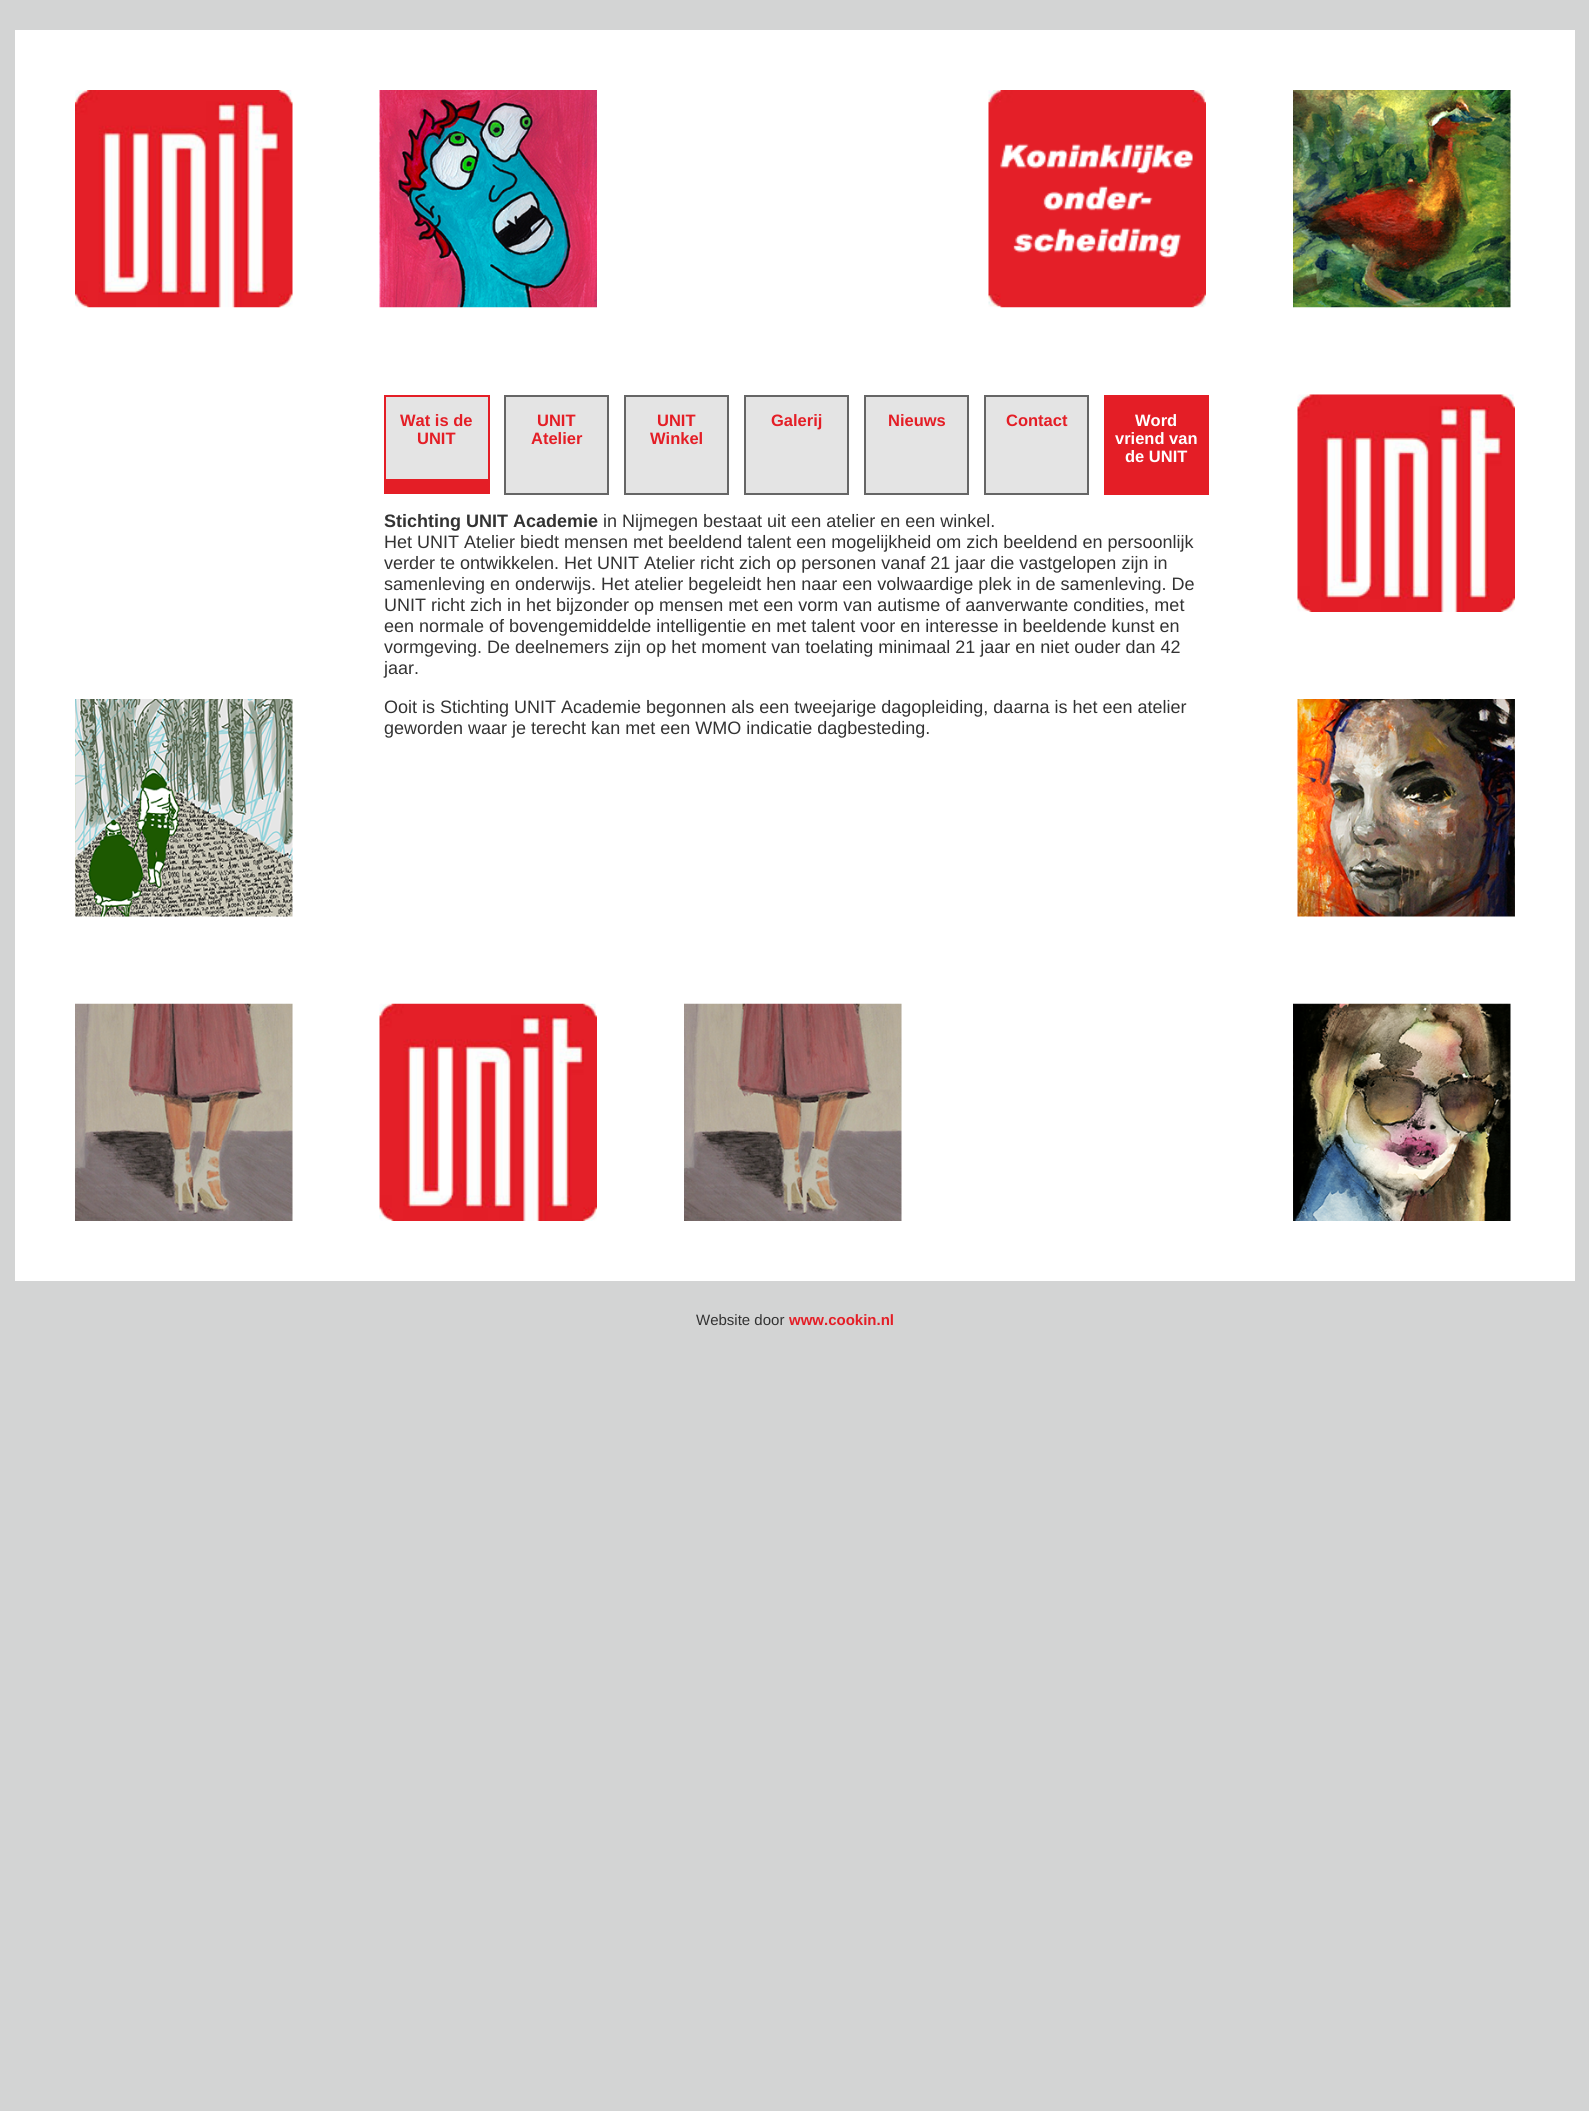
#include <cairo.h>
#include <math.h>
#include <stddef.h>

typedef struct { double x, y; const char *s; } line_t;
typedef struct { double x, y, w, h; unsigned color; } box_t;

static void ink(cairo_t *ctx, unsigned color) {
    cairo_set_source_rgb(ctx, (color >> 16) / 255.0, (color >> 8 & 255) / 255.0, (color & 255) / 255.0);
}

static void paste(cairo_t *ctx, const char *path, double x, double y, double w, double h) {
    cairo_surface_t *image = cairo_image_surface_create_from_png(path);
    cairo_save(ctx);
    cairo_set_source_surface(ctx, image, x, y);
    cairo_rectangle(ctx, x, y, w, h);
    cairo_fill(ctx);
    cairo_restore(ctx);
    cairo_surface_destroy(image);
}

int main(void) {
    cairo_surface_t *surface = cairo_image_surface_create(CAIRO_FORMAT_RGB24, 1589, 2111);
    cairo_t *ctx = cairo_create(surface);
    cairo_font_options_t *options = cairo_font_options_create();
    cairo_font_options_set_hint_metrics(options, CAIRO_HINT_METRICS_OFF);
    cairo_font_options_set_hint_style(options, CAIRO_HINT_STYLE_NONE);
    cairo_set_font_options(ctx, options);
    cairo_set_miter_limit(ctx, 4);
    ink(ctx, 0xD3D4D4);
    cairo_paint(ctx);
    ink(ctx, 0xFFFFFF);
    cairo_rectangle(ctx, 15, 30, 1560, 1251);
    cairo_fill(ctx);
    paste(ctx, "media/1.png", 75, 90, 218, 218);
    paste(ctx, "media/2.png", 379, 90, 218, 218);
    paste(ctx, "media/3.png", 988, 90, 218, 218);
    paste(ctx, "media/4.png", 1293, 90, 218, 218);
    {
        static const box_t items[] = {
            {386, 397, 102, 82, 0xE4E4E4},
            {384, 395, 105, 2, 0xE41E26},
            {488, 395, 2, 99, 0xE41E26},
            {386, 479, 102, 15, 0xE41E26},
            {384, 395, 2, 99, 0xE41E26},
        };
        for (size_t i = 0; i < sizeof items / sizeof *items; i++) {
            ink(ctx, items[i].color);
            cairo_rectangle(ctx, items[i].x, items[i].y, items[i].w, items[i].h);
            cairo_fill(ctx);
        }
    }
    cairo_select_font_face(ctx, "Liberation Sans", CAIRO_FONT_SLANT_NORMAL, CAIRO_FONT_WEIGHT_BOLD);
    cairo_set_font_size(ctx, 16.5);
    cairo_move_to(ctx, 400, 426);
    cairo_show_text(ctx, "Wat is de");
    cairo_move_to(ctx, 417, 444);
    cairo_show_text(ctx, "UNIT");
    ink(ctx, 0xE4E4E4);
    cairo_rectangle(ctx, 505, 396, 103, 98);
    cairo_fill_preserve(ctx);
    ink(ctx, 0x666666);
    cairo_stroke(ctx);
    ink(ctx, 0xE41E26);
    cairo_move_to(ctx, 537, 426);
    cairo_show_text(ctx, "UNIT");
    cairo_move_to(ctx, 531, 444);
    cairo_show_text(ctx, "Atelier");
    ink(ctx, 0xE4E4E4);
    cairo_rectangle(ctx, 625, 396, 103, 98);
    cairo_fill_preserve(ctx);
    ink(ctx, 0x666666);
    cairo_stroke(ctx);
    ink(ctx, 0xE41E26);
    cairo_move_to(ctx, 657, 426);
    cairo_show_text(ctx, "UNIT");
    cairo_move_to(ctx, 650, 444);
    cairo_show_text(ctx, "Winkel");
    ink(ctx, 0xE4E4E4);
    cairo_rectangle(ctx, 745, 396, 103, 98);
    cairo_fill_preserve(ctx);
    ink(ctx, 0x666666);
    cairo_stroke(ctx);
    ink(ctx, 0xE41E26);
    cairo_move_to(ctx, 771, 426);
    cairo_show_text(ctx, "Galerij");
    ink(ctx, 0xE4E4E4);
    cairo_rectangle(ctx, 865, 396, 103, 98);
    cairo_fill_preserve(ctx);
    ink(ctx, 0x666666);
    cairo_stroke(ctx);
    ink(ctx, 0xE41E26);
    cairo_move_to(ctx, 888, 426);
    cairo_show_text(ctx, "Nieuws");
    ink(ctx, 0xE4E4E4);
    cairo_rectangle(ctx, 985, 396, 103, 98);
    cairo_fill_preserve(ctx);
    ink(ctx, 0x666666);
    cairo_stroke(ctx);
    ink(ctx, 0xE41E26);
    cairo_move_to(ctx, 1006, 426);
    cairo_show_text(ctx, "Contact");
    cairo_rectangle(ctx, 1104, 395, 105, 100);
    cairo_fill(ctx);
    ink(ctx, 0xFFFFFF);
    {
        static const line_t items[] = {
            {1135, 426, "Word"},
            {1115, 444, "vriend van"},
            {1125, 462, "de UNIT"},
        };
        for (size_t i = 0; i < sizeof items / sizeof *items; i++) {
            cairo_move_to(ctx, items[i].x, items[i].y);
            cairo_show_text(ctx, items[i].s);
        }
    }
    cairo_set_font_size(ctx, 18);
    ink(ctx, 0x333333);
    cairo_move_to(ctx, 384, 527);
    cairo_show_text(ctx, "Stichting UNIT Academie");
    cairo_select_font_face(ctx, "Liberation Sans", CAIRO_FONT_SLANT_NORMAL, CAIRO_FONT_WEIGHT_NORMAL);
    {
        static const line_t items[] = {
            {603, 527, "in Nijmegen bestaat uit een atelier en een winkel."},
            {384, 548, "Het UNIT Atelier biedt mensen met beeldend talent een mogelijkheid om zich beeldend en persoonlijk"},
            {384, 569, "verder te ontwikkelen. Het UNIT Atelier richt zich op personen vanaf 21 jaar die vastgelopen zijn in"},
            {384, 590, "samenleving en onderwijs. Het atelier begeleidt hen naar een volwaardige plek in de samenleving. De"},
            {384, 611, "UNIT richt zich in het bijzonder op mensen met een vorm van autisme of aanverwante condities, met"},
            {384, 632, "een normale of bovengemiddelde intelligentie en met talent voor en interesse in beeldende kunst en"},
            {384, 653, "vormgeving. De deelnemers zijn op het moment van toelating minimaal 21 jaar en niet ouder dan 42"},
            {384, 674, "jaar."},
            {384, 713, "Ooit is Stichting UNIT Academie begonnen als een tweejarige dagopleiding, daarna is het een atelier"},
            {384, 734, "geworden waar je terecht kan met een WMO indicatie dagbesteding."},
        };
        for (size_t i = 0; i < sizeof items / sizeof *items; i++) {
            cairo_move_to(ctx, items[i].x, items[i].y);
            cairo_show_text(ctx, items[i].s);
        }
    }
    paste(ctx, "media/5.png", 1297, 394, 218, 218);
    paste(ctx, "media/6.png", 1297, 699, 218, 218);
    paste(ctx, "media/7.png", 75, 699, 218, 218);
    paste(ctx, "media/8.png", 75, 1003, 218, 218);
    paste(ctx, "media/9.png", 379, 1003, 218, 218);
    paste(ctx, "media/8.png", 684, 1003, 218, 218);
    paste(ctx, "media/10.png", 1293, 1003, 218, 218);
    cairo_set_font_size(ctx, 15);
    cairo_move_to(ctx, 696, 1325);
    cairo_show_text(ctx, "Website door");
    cairo_select_font_face(ctx, "Liberation Sans", CAIRO_FONT_SLANT_NORMAL, CAIRO_FONT_WEIGHT_BOLD);
    ink(ctx, 0xE41E26);
    cairo_move_to(ctx, 789, 1325);
    cairo_show_text(ctx, "www.cookin.nl");
    cairo_surface_write_to_png(surface, "image.png");
    cairo_font_options_destroy(options);
    cairo_destroy(ctx);
    cairo_surface_destroy(surface);
    return 0;
}
